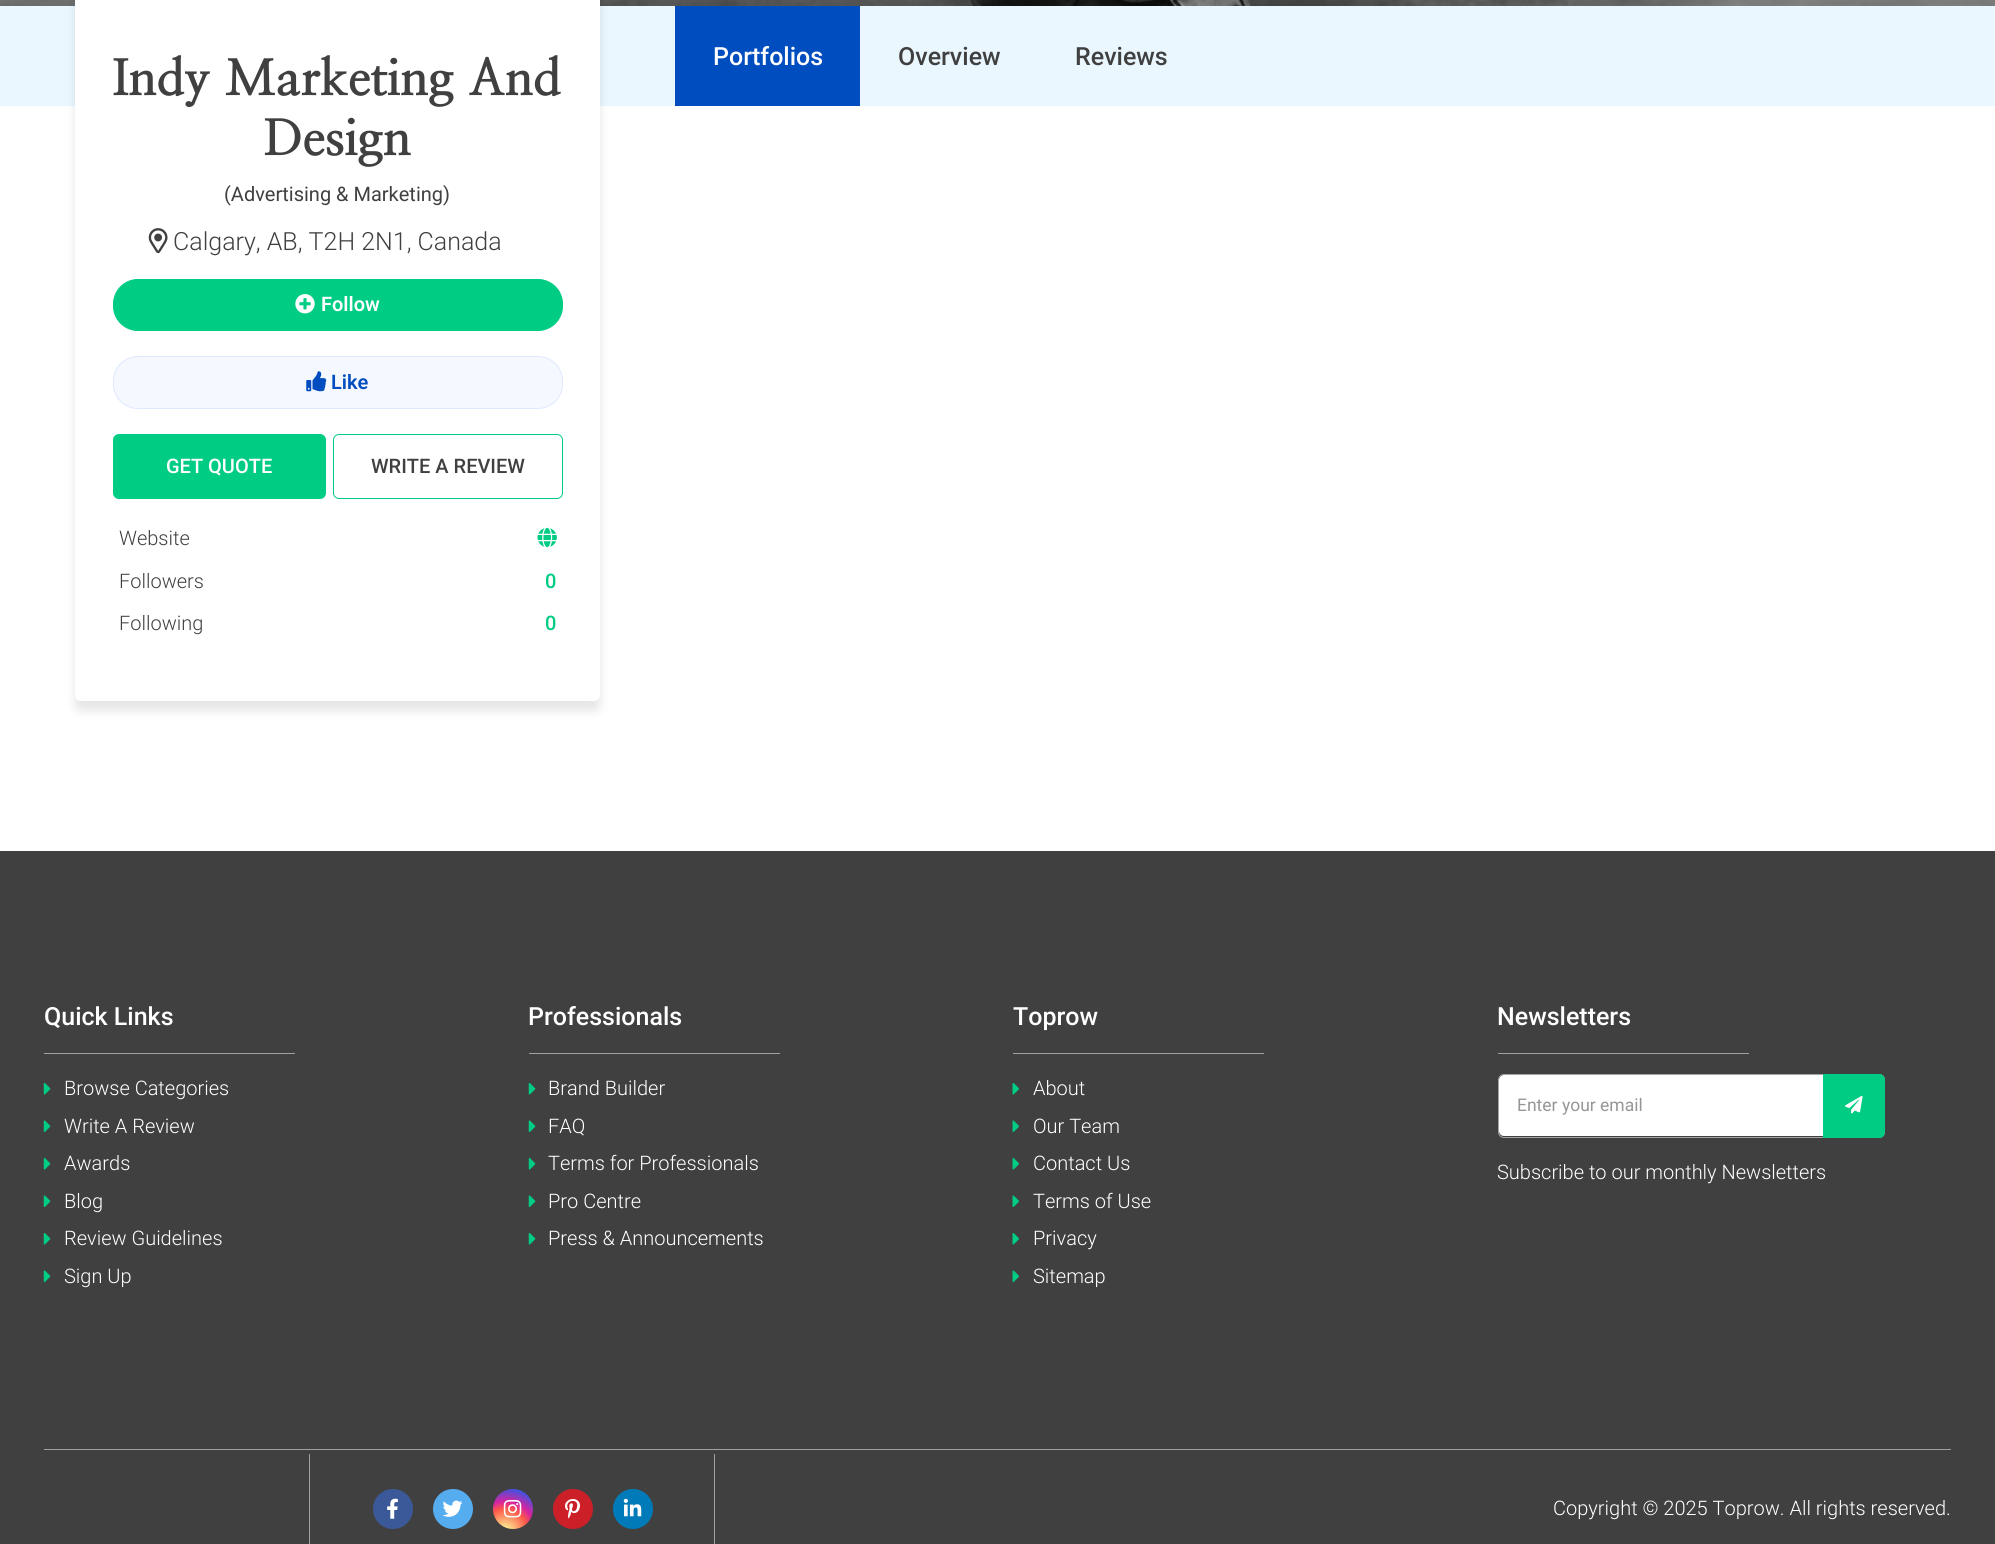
#include <cairo.h>
#include <math.h>
#include <stddef.h>

typedef struct { double x, y, w, h; unsigned color; } box_t;

static void ink(cairo_t *ctx, unsigned color) {
    cairo_set_source_rgb(ctx, (color >> 16) / 255.0, (color >> 8 & 255) / 255.0, (color & 255) / 255.0);
}

static void round_path(cairo_t *ctx, double x, double y, double w, double h, double r) {
    cairo_new_sub_path(ctx);
    cairo_arc(ctx, x + w - r, y + h - r, r, 0, M_PI / 2);
    cairo_arc(ctx, x + r, y + h - r, r, M_PI / 2, M_PI);
    cairo_arc(ctx, x + r, y + r, r, M_PI, 1.5 * M_PI);
    cairo_arc(ctx, x + w - r, y + r, r, 1.5 * M_PI, 2 * M_PI);
    cairo_close_path(ctx);
}

static void blur_box(cairo_t *ctx, double x, double y, double w, double h, double r, double blur, double alpha) {
    cairo_push_group_with_content(ctx, CAIRO_CONTENT_ALPHA);
    cairo_set_operator(ctx, CAIRO_OPERATOR_SOURCE);
    for (int i = 15; i >= -15 && fmin(w, h) + blur * i / 3 > 0; i -= 2) {
        double e = blur * i / 6;
        cairo_set_source_rgba(ctx, 0, 0, 0, alpha * erfc((i - 1) / 8.5) / 2);
        round_path(ctx, x - e, y - e, w + 2 * e, h + 2 * e, fmax(0, fmin(r + e + blur * .6, fmin(w, h) / 2 + e)));
        cairo_fill(ctx);
    }
    cairo_pattern_t *soft = cairo_pop_group(ctx);
    cairo_mask(ctx, soft);
    cairo_pattern_destroy(soft);
}

static void paste(cairo_t *ctx, const char *path, double x, double y, double w, double h) {
    cairo_surface_t *image = cairo_image_surface_create_from_png(path);
    cairo_save(ctx);
    cairo_set_source_surface(ctx, image, x, y);
    cairo_rectangle(ctx, x, y, w, h);
    cairo_fill(ctx);
    cairo_restore(ctx);
    cairo_surface_destroy(image);
}

int main(void) {
    cairo_surface_t *surface = cairo_image_surface_create(CAIRO_FORMAT_RGB24, 1995, 1544);
    cairo_t *ctx = cairo_create(surface);
    cairo_font_options_t *options = cairo_font_options_create();
    cairo_font_options_set_hint_metrics(options, CAIRO_HINT_METRICS_OFF);
    cairo_font_options_set_hint_style(options, CAIRO_HINT_STYLE_NONE);
    cairo_set_font_options(ctx, options);
    cairo_set_miter_limit(ctx, 4);
    cairo_pattern_t *gradient;
    ink(ctx, 0xFFFFFF);
    cairo_paint(ctx);
    paste(ctx, "media/1.png", 0, 0, 1995, 6);
    ink(ctx, 0xEAF7FF);
    cairo_rectangle(ctx, 0, 6, 1995, 100);
    cairo_fill(ctx);
    ink(ctx, 0x000000);
    blur_box(ctx, 75, -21, 525, 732, 6, 5, 0.1);
    ink(ctx, 0xFFFFFF);
    round_path(ctx, 75, -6, 525, 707, 6);
    cairo_fill(ctx);
    cairo_select_font_face(ctx, "NanumMyeongjo ExtraBold", CAIRO_FONT_SLANT_NORMAL, CAIRO_FONT_WEIGHT_NORMAL);
    cairo_set_font_size(ctx, 50);
    ink(ctx, 0x404040);
    cairo_move_to(ctx, 113, 95);
    cairo_show_text(ctx, "Indy Marketing And");
    cairo_move_to(ctx, 264, 155);
    cairo_show_text(ctx, "Design");
    cairo_select_font_face(ctx, "Roboto", CAIRO_FONT_SLANT_NORMAL, CAIRO_FONT_WEIGHT_NORMAL);
    cairo_set_font_size(ctx, 20);
    cairo_move_to(ctx, 224, 201);
    cairo_show_text(ctx, "(Advertising & Marketing)");
    paste(ctx, "media/2.png", 148, 228, 20, 26);
    cairo_select_font_face(ctx, "Roboto Light", CAIRO_FONT_SLANT_NORMAL, CAIRO_FONT_WEIGHT_NORMAL);
    cairo_set_font_size(ctx, 25);
    cairo_move_to(ctx, 173, 250);
    cairo_show_text(ctx, "Calgary, AB, T2H 2N1, Canada");
    ink(ctx, 0x00CC83);
    round_path(ctx, 113.5, 279.5, 449, 51, 24.5);
    cairo_fill_preserve(ctx);
    cairo_set_line_width(ctx, 1);
    cairo_stroke(ctx);
    paste(ctx, "media/3.png", 295, 294, 20, 20);
    cairo_select_font_face(ctx, "Roboto SemiBold", CAIRO_FONT_SLANT_NORMAL, CAIRO_FONT_WEIGHT_NORMAL);
    cairo_set_font_size(ctx, 20);
    ink(ctx, 0xFFFFFF);
    cairo_move_to(ctx, 321, 311);
    cairo_show_text(ctx, "Follow");
    ink(ctx, 0xF5F8FF);
    round_path(ctx, 113.5, 356.5, 449, 52, 24.5);
    cairo_fill_preserve(ctx);
    ink(ctx, 0xDEE8FF);
    cairo_stroke(ctx);
    paste(ctx, "media/4.png", 306, 371, 21, 21);
    ink(ctx, 0x004DC0);
    cairo_move_to(ctx, 331, 389);
    cairo_show_text(ctx, "Like");
    ink(ctx, 0x00CC83);
    round_path(ctx, 113, 434, 213, 65, 6);
    cairo_fill(ctx);
    cairo_select_font_face(ctx, "Roboto Medium", CAIRO_FONT_SLANT_NORMAL, CAIRO_FONT_WEIGHT_NORMAL);
    ink(ctx, 0xFFFFFF);
    cairo_move_to(ctx, 166, 473);
    cairo_show_text(ctx, "GET QUOTE");
    round_path(ctx, 333.5, 434.5, 229, 64, 5.5);
    ink(ctx, 0x00CC83);
    cairo_stroke(ctx);
    ink(ctx, 0x404040);
    cairo_move_to(ctx, 371, 473);
    cairo_show_text(ctx, "WRITE A REVIEW");
    cairo_select_font_face(ctx, "Roboto Light", CAIRO_FONT_SLANT_NORMAL, CAIRO_FONT_WEIGHT_NORMAL);
    cairo_move_to(ctx, 119, 545);
    cairo_show_text(ctx, "Website");
    paste(ctx, "media/5.png", 537, 527, 20, 21);
    cairo_move_to(ctx, 119, 588);
    cairo_show_text(ctx, "Followers");
    cairo_select_font_face(ctx, "Roboto Medium", CAIRO_FONT_SLANT_NORMAL, CAIRO_FONT_WEIGHT_NORMAL);
    ink(ctx, 0x00CC83);
    cairo_move_to(ctx, 545, 588);
    cairo_show_text(ctx, "0");
    cairo_select_font_face(ctx, "Roboto Light", CAIRO_FONT_SLANT_NORMAL, CAIRO_FONT_WEIGHT_NORMAL);
    ink(ctx, 0x404040);
    cairo_move_to(ctx, 119, 630);
    cairo_show_text(ctx, "Following");
    cairo_select_font_face(ctx, "Roboto Medium", CAIRO_FONT_SLANT_NORMAL, CAIRO_FONT_WEIGHT_NORMAL);
    ink(ctx, 0x00CC83);
    cairo_move_to(ctx, 545, 630);
    cairo_show_text(ctx, "0");
    ink(ctx, 0x004DC0);
    cairo_rectangle(ctx, 675, 6, 185, 100);
    cairo_fill(ctx);
    cairo_set_font_size(ctx, 25);
    ink(ctx, 0xFFFFFF);
    cairo_move_to(ctx, 713, 65);
    cairo_show_text(ctx, "Portfolios");
    ink(ctx, 0x404040);
    cairo_move_to(ctx, 898, 65);
    cairo_show_text(ctx, "Overview");
    cairo_move_to(ctx, 1075, 65);
    cairo_show_text(ctx, "Reviews");
    cairo_rectangle(ctx, 0, 851, 1995, 693);
    cairo_fill(ctx);
    ink(ctx, 0xFFFFFF);
    cairo_move_to(ctx, 44, 1025);
    cairo_show_text(ctx, "Quick Links");
    ink(ctx, 0xA0A0A0);
    cairo_rectangle(ctx, 44, 1053, 251, 1);
    cairo_fill(ctx);
    paste(ctx, "media/6.png", 43, 1083, 8, 12);
    cairo_select_font_face(ctx, "Roboto Light", CAIRO_FONT_SLANT_NORMAL, CAIRO_FONT_WEIGHT_NORMAL);
    cairo_set_font_size(ctx, 20);
    ink(ctx, 0xFFFFFF);
    cairo_move_to(ctx, 64, 1095);
    cairo_show_text(ctx, "Browse Categories");
    paste(ctx, "media/7.png", 43, 1120, 8, 12);
    cairo_move_to(ctx, 64, 1133);
    cairo_show_text(ctx, "Write A Review");
    paste(ctx, "media/6.png", 43, 1158, 8, 12);
    cairo_move_to(ctx, 64, 1170);
    cairo_show_text(ctx, "Awards");
    paste(ctx, "media/7.png", 43, 1195, 8, 12);
    cairo_move_to(ctx, 64, 1208);
    cairo_show_text(ctx, "Blog");
    paste(ctx, "media/6.png", 43, 1233, 8, 12);
    cairo_move_to(ctx, 64, 1245);
    cairo_show_text(ctx, "Review Guidelines");
    paste(ctx, "media/7.png", 43, 1270, 8, 12);
    cairo_move_to(ctx, 64, 1283);
    cairo_show_text(ctx, "Sign Up");
    cairo_select_font_face(ctx, "Roboto Medium", CAIRO_FONT_SLANT_NORMAL, CAIRO_FONT_WEIGHT_NORMAL);
    cairo_set_font_size(ctx, 25);
    cairo_move_to(ctx, 528, 1025);
    cairo_show_text(ctx, "Professionals");
    ink(ctx, 0xA0A0A0);
    cairo_rectangle(ctx, 529, 1053, 251, 1);
    cairo_fill(ctx);
    paste(ctx, "media/6.png", 528, 1083, 8, 12);
    cairo_select_font_face(ctx, "Roboto Light", CAIRO_FONT_SLANT_NORMAL, CAIRO_FONT_WEIGHT_NORMAL);
    cairo_set_font_size(ctx, 20);
    ink(ctx, 0xFFFFFF);
    cairo_move_to(ctx, 548, 1095);
    cairo_show_text(ctx, "Brand Builder");
    paste(ctx, "media/7.png", 528, 1120, 8, 12);
    cairo_move_to(ctx, 548, 1133);
    cairo_show_text(ctx, "FAQ");
    paste(ctx, "media/6.png", 528, 1158, 8, 12);
    cairo_move_to(ctx, 548, 1170);
    cairo_show_text(ctx, "Terms for Professionals");
    paste(ctx, "media/7.png", 528, 1195, 8, 12);
    cairo_move_to(ctx, 548, 1208);
    cairo_show_text(ctx, "Pro Centre");
    paste(ctx, "media/6.png", 528, 1233, 8, 12);
    cairo_move_to(ctx, 548, 1245);
    cairo_show_text(ctx, "Press & Announcements");
    cairo_select_font_face(ctx, "Roboto Medium", CAIRO_FONT_SLANT_NORMAL, CAIRO_FONT_WEIGHT_NORMAL);
    cairo_set_font_size(ctx, 25);
    cairo_move_to(ctx, 1013, 1025);
    cairo_show_text(ctx, "Toprow");
    ink(ctx, 0xA0A0A0);
    cairo_rectangle(ctx, 1013, 1053, 251, 1);
    cairo_fill(ctx);
    paste(ctx, "media/8.png", 1012, 1083, 7, 12);
    cairo_select_font_face(ctx, "Roboto Light", CAIRO_FONT_SLANT_NORMAL, CAIRO_FONT_WEIGHT_NORMAL);
    cairo_set_font_size(ctx, 20);
    ink(ctx, 0xFFFFFF);
    cairo_move_to(ctx, 1033, 1095);
    cairo_show_text(ctx, "About");
    paste(ctx, "media/9.png", 1012, 1120, 7, 12);
    cairo_move_to(ctx, 1033, 1133);
    cairo_show_text(ctx, "Our Team");
    paste(ctx, "media/8.png", 1012, 1158, 7, 12);
    cairo_move_to(ctx, 1033, 1170);
    cairo_show_text(ctx, "Contact Us");
    paste(ctx, "media/9.png", 1012, 1195, 7, 12);
    cairo_move_to(ctx, 1033, 1208);
    cairo_show_text(ctx, "Terms of Use");
    paste(ctx, "media/8.png", 1012, 1233, 7, 12);
    cairo_move_to(ctx, 1033, 1245);
    cairo_show_text(ctx, "Privacy");
    paste(ctx, "media/9.png", 1012, 1270, 7, 12);
    cairo_move_to(ctx, 1033, 1283);
    cairo_show_text(ctx, "Sitemap");
    cairo_select_font_face(ctx, "Roboto Medium", CAIRO_FONT_SLANT_NORMAL, CAIRO_FONT_WEIGHT_NORMAL);
    cairo_set_font_size(ctx, 25);
    cairo_move_to(ctx, 1497, 1025);
    cairo_show_text(ctx, "Newsletters");
    ink(ctx, 0xA0A0A0);
    cairo_rectangle(ctx, 1498, 1053, 251, 1);
    cairo_fill(ctx);
    ink(ctx, 0xFFFFFF);
    round_path(ctx, 1499, 1075, 385, 61, 5);
    cairo_fill(ctx);
    round_path(ctx, 1498.5, 1074.5, 386, 63, 5.5);
    ink(ctx, 0xA4A4A4);
    cairo_stroke(ctx);
    cairo_select_font_face(ctx, "Roboto", CAIRO_FONT_SLANT_NORMAL, CAIRO_FONT_WEIGHT_NORMAL);
    cairo_set_font_size(ctx, 17.5);
    ink(ctx, 0x969696);
    cairo_move_to(ctx, 1517, 1111);
    cairo_show_text(ctx, "Enter your email");
    ink(ctx, 0x00CC83);
    cairo_new_path(ctx);
    cairo_move_to(ctx, 1823, 1074);
    cairo_line_to(ctx, 1879, 1074);
    cairo_curve_to(ctx, 1882.5, 1074, 1885, 1076.5, 1885, 1080);
    cairo_line_to(ctx, 1885, 1132);
    cairo_curve_to(ctx, 1885, 1135.5, 1882.5, 1138, 1879, 1138);
    cairo_line_to(ctx, 1823, 1138);
    cairo_close_path(ctx);
    cairo_fill(ctx);
    paste(ctx, "media/10.png", 1845, 1096, 18, 18);
    cairo_select_font_face(ctx, "Roboto Light", CAIRO_FONT_SLANT_NORMAL, CAIRO_FONT_WEIGHT_NORMAL);
    cairo_set_font_size(ctx, 20);
    ink(ctx, 0xFFFFFF);
    cairo_move_to(ctx, 1497, 1179);
    cairo_show_text(ctx, "Subscribe to our monthly Newsletters");
    {
        static const box_t items[] = {
            {44, 1449, 1907, 1, 0xA0A0A0},
            {714, 1454, 1, 90, 0xA0A0A0},
            {309, 1454, 1, 90, 0xA0A0A0},
        };
        for (size_t i = 0; i < sizeof items / sizeof *items; i++) {
            ink(ctx, items[i].color);
            cairo_rectangle(ctx, items[i].x, items[i].y, items[i].w, items[i].h);
            cairo_fill(ctx);
        }
    }
    ink(ctx, 0x3B5998);
    cairo_new_path(ctx);
    cairo_arc(ctx, 393, 1509, 20, 0, 2 * M_PI);
    cairo_fill(ctx);
    paste(ctx, "media/11.png", 387, 1498, 11, 21);
    ink(ctx, 0x55ACEE);
    cairo_arc(ctx, 453, 1509, 20, 0, 2 * M_PI);
    cairo_fill(ctx);
    paste(ctx, "media/12.png", 442, 1500, 21, 17);
    gradient = cairo_pattern_create_radial(505, 1532, 0, 505, 1532, 51);
    cairo_pattern_add_color_stop_rgba(gradient, 0, 0.992, 0.957, 0.592, 1);
    cairo_pattern_add_color_stop_rgba(gradient, 0.05, 0.992, 0.957, 0.592, 1);
    cairo_pattern_add_color_stop_rgba(gradient, 0.45, 0.992, 0.349, 0.286, 1);
    cairo_pattern_add_color_stop_rgba(gradient, 0.6, 0.839, 0.141, 0.624, 1);
    cairo_pattern_add_color_stop_rgba(gradient, 0.9, 0.157, 0.353, 0.922, 1);
    cairo_set_source(ctx, gradient);
    cairo_pattern_destroy(gradient);
    cairo_arc(ctx, 513, 1509, 20, 0, 2 * M_PI);
    cairo_fill(ctx);
    paste(ctx, "media/13.png", 503, 1500, 19, 18);
    ink(ctx, 0xCB2027);
    cairo_arc(ctx, 573, 1509, 20, 0, 2 * M_PI);
    cairo_fill(ctx);
    paste(ctx, "media/14.png", 565, 1499, 15, 20);
    ink(ctx, 0x007AB9);
    cairo_arc(ctx, 633, 1509, 20, 0, 2 * M_PI);
    cairo_fill(ctx);
    paste(ctx, "media/15.png", 623, 1498, 19, 19);
    ink(ctx, 0xFFFFFF);
    cairo_move_to(ctx, 1553, 1515);
    cairo_show_text(ctx, "Copyright © 2025 Toprow. All rights reserved.");
    cairo_surface_write_to_png(surface, "image.png");
    cairo_font_options_destroy(options);
    cairo_destroy(ctx);
    cairo_surface_destroy(surface);
    return 0;
}
